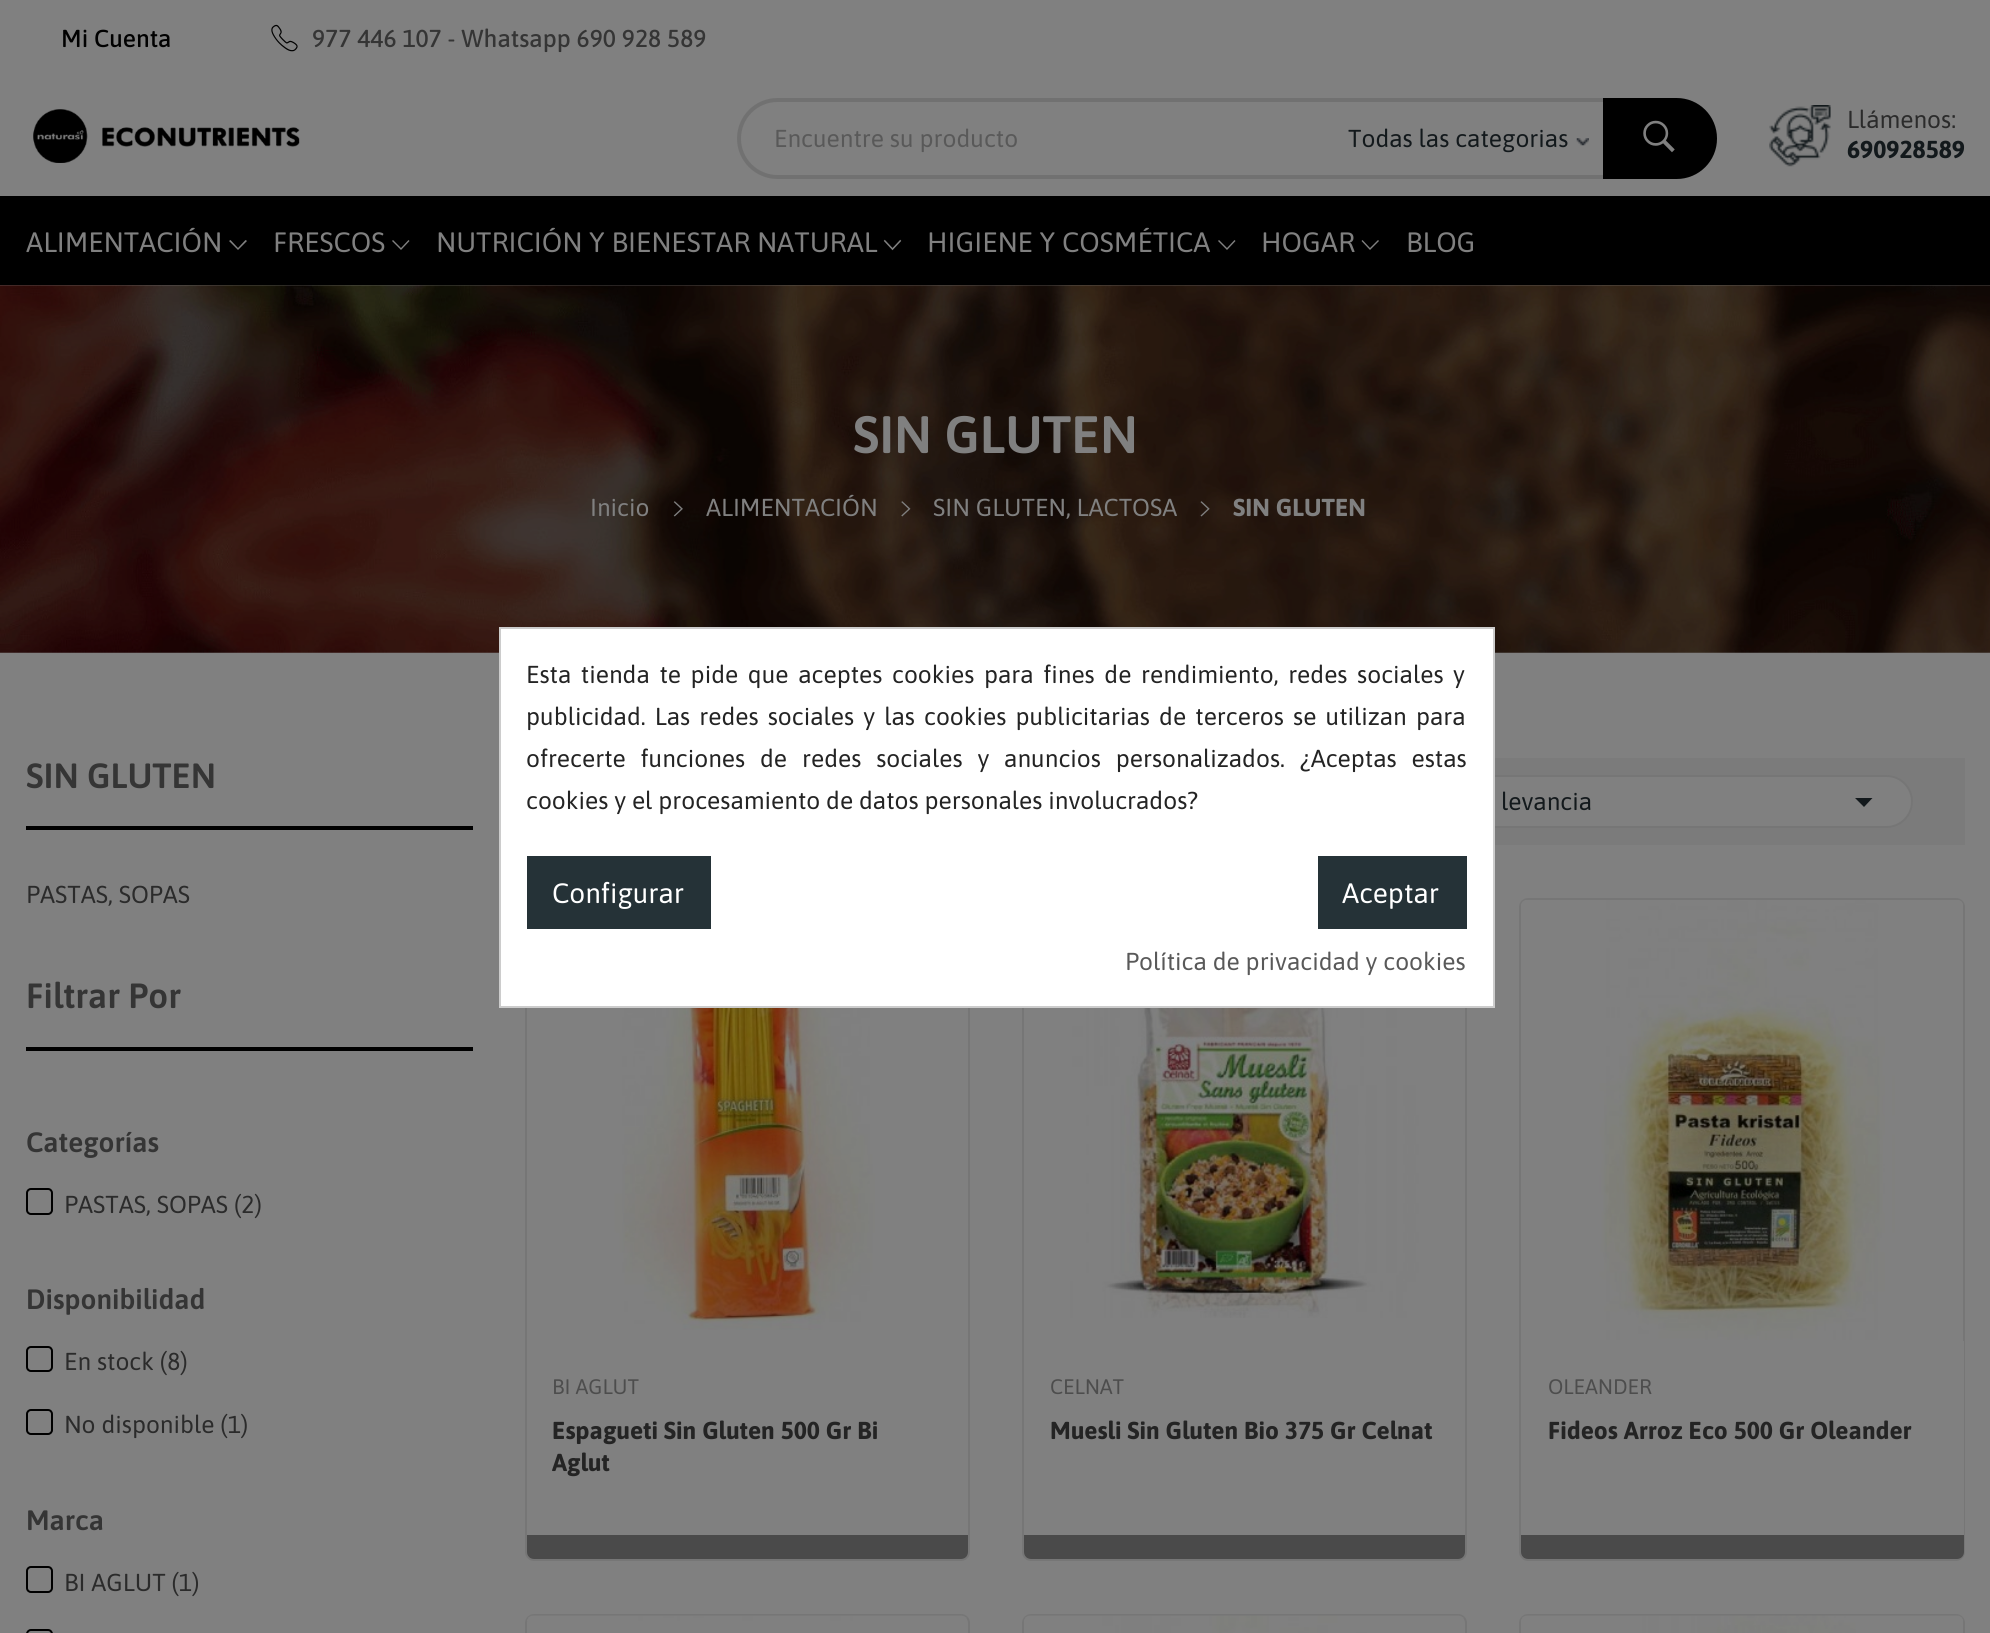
#include <cairo.h>
#include <math.h>
#include <stddef.h>


static void ink(cairo_t *ctx, unsigned color) {
    cairo_set_source_rgb(ctx, (color >> 16) / 255.0, (color >> 8 & 255) / 255.0, (color & 255) / 255.0);
}

static void write_spaced(cairo_t *ctx, double x, double y, const char *s, double letter, double word) {
    cairo_move_to(ctx, x, y);
    while (*s) {
        char ch[5] = {0};
        int n = 0;
        do ch[n++] = *s++; while ((*s & 0xC0) == 0x80);
        cairo_show_text(ctx, ch);
        cairo_rel_move_to(ctx, letter + word * (*ch == ' '), 0);
    }
}

static void round_path(cairo_t *ctx, double x, double y, double w, double h, double r) {
    cairo_new_sub_path(ctx);
    cairo_arc(ctx, x + w - r, y + h - r, r, 0, M_PI / 2);
    cairo_arc(ctx, x + r, y + h - r, r, M_PI / 2, M_PI);
    cairo_arc(ctx, x + r, y + r, r, M_PI, 1.5 * M_PI);
    cairo_arc(ctx, x + w - r, y + r, r, 1.5 * M_PI, 2 * M_PI);
    cairo_close_path(ctx);
}

static void paste(cairo_t *ctx, const char *path, double x, double y, double w, double h) {
    cairo_surface_t *image = cairo_image_surface_create_from_png(path);
    cairo_save(ctx);
    cairo_set_source_surface(ctx, image, x, y);
    cairo_rectangle(ctx, x, y, w, h);
    cairo_fill(ctx);
    cairo_restore(ctx);
    cairo_surface_destroy(image);
}

int main(void) {
    cairo_surface_t *surface = cairo_image_surface_create(CAIRO_FORMAT_RGB24, 1990, 1633);
    cairo_t *ctx = cairo_create(surface);
    cairo_font_options_t *options = cairo_font_options_create();
    cairo_font_options_set_hint_metrics(options, CAIRO_HINT_METRICS_OFF);
    cairo_font_options_set_hint_style(options, CAIRO_HINT_STYLE_NONE);
    cairo_set_font_options(ctx, options);
    cairo_set_miter_limit(ctx, 4);
    ink(ctx, 0x808080);
    cairo_paint(ctx);
    cairo_select_font_face(ctx, "Asap Medium", CAIRO_FONT_SLANT_NORMAL, CAIRO_FONT_WEIGHT_NORMAL);
    cairo_set_font_size(ctx, 24.5);
    ink(ctx, 0x010101);
    cairo_move_to(ctx, 61, 47);
    cairo_show_text(ctx, "Mi Cuenta");
    paste(ctx, "media/1.png", 271, 24, 27, 28);
    ink(ctx, 0x353535);
    cairo_move_to(ctx, 312, 47);
    cairo_show_text(ctx, "977 446 107 - Whatsapp 690 928 589");
    paste(ctx, "media/2.png", 33, 109, 267, 54);
    round_path(ctx, 739, 100, 976, 77, 38.5);
    ink(ctx, 0x717171);
    cairo_set_line_width(ctx, 4);
    cairo_stroke(ctx);
    cairo_select_font_face(ctx, "Asap", CAIRO_FONT_SLANT_NORMAL, CAIRO_FONT_WEIGHT_NORMAL);
    ink(ctx, 0x595959);
    cairo_move_to(ctx, 774, 147);
    cairo_show_text(ctx, "Encuentre su producto");
    paste(ctx, "media/3.png", 1576, 138, 13, 8);
    ink(ctx, 0x13191C);
    cairo_move_to(ctx, 1348, 147);
    cairo_show_text(ctx, "Todas las categorias");
    ink(ctx, 0x000000);
    cairo_new_path(ctx);
    cairo_move_to(ctx, 1603, 98);
    cairo_line_to(ctx, 1676.5, 98);
    cairo_curve_to(ctx, 1699, 98, 1717, 116, 1717, 138.5);
    cairo_curve_to(ctx, 1717, 161, 1699, 179, 1676.5, 179);
    cairo_line_to(ctx, 1603, 179);
    cairo_close_path(ctx);
    cairo_fill(ctx);
    paste(ctx, "media/4.png", 1643, 120, 32, 33);
    paste(ctx, "media/5.png", 1769, 105, 62, 62);
    ink(ctx, 0x2B2B2B);
    cairo_move_to(ctx, 1847, 128);
    cairo_show_text(ctx, "Llámenos:");
    cairo_select_font_face(ctx, "Asap", CAIRO_FONT_SLANT_NORMAL, CAIRO_FONT_WEIGHT_BOLD);
    ink(ctx, 0x13191C);
    cairo_move_to(ctx, 1847, 158);
    cairo_show_text(ctx, "690928589");
    ink(ctx, 0x000000);
    cairo_rectangle(ctx, 0, 196, 1990, 89);
    cairo_fill(ctx);
    cairo_select_font_face(ctx, "Asap", CAIRO_FONT_SLANT_NORMAL, CAIRO_FONT_WEIGHT_NORMAL);
    cairo_set_font_size(ctx, 28);
    ink(ctx, 0x808080);
    cairo_move_to(ctx, 26, 252);
    cairo_show_text(ctx, "ALIMENTACIÓN");
    cairo_new_path(ctx);
    cairo_move_to(ctx, 245.5, 240);
    cairo_line_to(ctx, 247, 241);
    cairo_line_to(ctx, 238, 250);
    cairo_line_to(ctx, 229, 241);
    cairo_line_to(ctx, 230.5, 240);
    cairo_line_to(ctx, 238, 248);
    cairo_close_path(ctx);
    cairo_fill(ctx);
    cairo_move_to(ctx, 273, 252);
    cairo_show_text(ctx, "FRESCOS");
    cairo_new_path(ctx);
    cairo_move_to(ctx, 408.5, 240);
    cairo_line_to(ctx, 409.5, 241);
    cairo_line_to(ctx, 401, 250);
    cairo_line_to(ctx, 392, 241);
    cairo_line_to(ctx, 393, 240);
    cairo_line_to(ctx, 401, 248);
    cairo_close_path(ctx);
    cairo_fill(ctx);
    cairo_move_to(ctx, 436, 252);
    cairo_show_text(ctx, "NUTRICIÓN Y BIENESTAR NATURAL");
    paste(ctx, "media/6.png", 883, 239, 19, 12);
    cairo_move_to(ctx, 927, 252);
    cairo_show_text(ctx, "HIGIENE Y COSMÉTICA");
    cairo_new_path(ctx);
    cairo_move_to(ctx, 1234.5, 240);
    cairo_line_to(ctx, 1235.5, 241);
    cairo_line_to(ctx, 1227, 250);
    cairo_line_to(ctx, 1218, 241);
    cairo_line_to(ctx, 1219, 240);
    cairo_line_to(ctx, 1227, 248);
    cairo_close_path(ctx);
    cairo_fill(ctx);
    cairo_move_to(ctx, 1261, 252);
    cairo_show_text(ctx, "HOGAR");
    cairo_new_path(ctx);
    cairo_move_to(ctx, 1378, 240);
    cairo_line_to(ctx, 1379, 241);
    cairo_line_to(ctx, 1370, 250);
    cairo_line_to(ctx, 1361.5, 241);
    cairo_line_to(ctx, 1362.5, 240);
    cairo_line_to(ctx, 1370, 248);
    cairo_close_path(ctx);
    cairo_fill(ctx);
    cairo_move_to(ctx, 1406, 252);
    cairo_show_text(ctx, "BLOG");
    paste(ctx, "media/7.png", 0, 285, 1990, 368);
    cairo_select_font_face(ctx, "Asap SemiBold", CAIRO_FONT_SLANT_NORMAL, CAIRO_FONT_WEIGHT_NORMAL);
    cairo_set_font_size(ctx, 52.5);
    cairo_move_to(ctx, 853, 453);
    cairo_show_text(ctx, "SIN GLUTEN");
    cairo_select_font_face(ctx, "Asap", CAIRO_FONT_SLANT_NORMAL, CAIRO_FONT_WEIGHT_NORMAL);
    cairo_set_font_size(ctx, 24.5);
    cairo_move_to(ctx, 590, 516);
    cairo_show_text(ctx, "Inicio");
    paste(ctx, "media/8.png", 673, 501, 10, 16);
    cairo_move_to(ctx, 706, 516);
    cairo_show_text(ctx, "ALIMENTACIÓN");
    paste(ctx, "media/9.png", 901, 501, 10, 16);
    cairo_move_to(ctx, 933, 516);
    cairo_show_text(ctx, "SIN GLUTEN, LACTOSA");
    paste(ctx, "media/10.png", 1200, 501, 10, 16);
    cairo_select_font_face(ctx, "Asap", CAIRO_FONT_SLANT_NORMAL, CAIRO_FONT_WEIGHT_BOLD);
    cairo_move_to(ctx, 1233, 516);
    cairo_show_text(ctx, "SIN GLUTEN");
    cairo_select_font_face(ctx, "Asap SemiBold", CAIRO_FONT_SLANT_NORMAL, CAIRO_FONT_WEIGHT_NORMAL);
    cairo_set_font_size(ctx, 35);
    ink(ctx, 0x353535);
    cairo_move_to(ctx, 26, 788);
    cairo_show_text(ctx, "SIN GLUTEN");
    ink(ctx, 0x000000);
    cairo_rectangle(ctx, 26, 826, 447, 4);
    cairo_fill(ctx);
    cairo_select_font_face(ctx, "Asap", CAIRO_FONT_SLANT_NORMAL, CAIRO_FONT_WEIGHT_NORMAL);
    cairo_set_font_size(ctx, 24.5);
    ink(ctx, 0x2B2B2B);
    cairo_move_to(ctx, 26, 903);
    cairo_show_text(ctx, "PASTAS, SOPAS");
    cairo_select_font_face(ctx, "Asap SemiBold", CAIRO_FONT_SLANT_NORMAL, CAIRO_FONT_WEIGHT_NORMAL);
    cairo_set_font_size(ctx, 35);
    ink(ctx, 0x353535);
    cairo_move_to(ctx, 26, 1008);
    cairo_show_text(ctx, "Filtrar Por");
    ink(ctx, 0x000000);
    cairo_rectangle(ctx, 26, 1047, 447, 4);
    cairo_fill(ctx);
    cairo_set_font_size(ctx, 28);
    ink(ctx, 0x353535);
    cairo_move_to(ctx, 26, 1152);
    cairo_show_text(ctx, "Categorías");
    round_path(ctx, 27, 1189, 25, 25, 4);
    ink(ctx, 0x000000);
    cairo_set_line_width(ctx, 2);
    cairo_stroke(ctx);
    cairo_select_font_face(ctx, "Asap", CAIRO_FONT_SLANT_NORMAL, CAIRO_FONT_WEIGHT_NORMAL);
    cairo_set_font_size(ctx, 24.5);
    ink(ctx, 0x2B2B2B);
    cairo_move_to(ctx, 64, 1213);
    cairo_show_text(ctx, "PASTAS, SOPAS (2)");
    cairo_select_font_face(ctx, "Asap SemiBold", CAIRO_FONT_SLANT_NORMAL, CAIRO_FONT_WEIGHT_NORMAL);
    cairo_set_font_size(ctx, 28);
    ink(ctx, 0x353535);
    cairo_move_to(ctx, 26, 1309);
    cairo_show_text(ctx, "Disponibilidad");
    round_path(ctx, 27, 1347, 25, 24, 4);
    ink(ctx, 0x000000);
    cairo_stroke(ctx);
    cairo_select_font_face(ctx, "Asap", CAIRO_FONT_SLANT_NORMAL, CAIRO_FONT_WEIGHT_NORMAL);
    cairo_set_font_size(ctx, 24.5);
    ink(ctx, 0x2B2B2B);
    cairo_move_to(ctx, 64, 1370);
    cairo_show_text(ctx, "En stock (8)");
    round_path(ctx, 27, 1410, 25, 24, 4);
    ink(ctx, 0x000000);
    cairo_stroke(ctx);
    ink(ctx, 0x2B2B2B);
    cairo_move_to(ctx, 64, 1433);
    cairo_show_text(ctx, "No disponible (1)");
    cairo_select_font_face(ctx, "Asap SemiBold", CAIRO_FONT_SLANT_NORMAL, CAIRO_FONT_WEIGHT_NORMAL);
    cairo_set_font_size(ctx, 28);
    ink(ctx, 0x353535);
    cairo_move_to(ctx, 26, 1530);
    cairo_show_text(ctx, "Marca");
    round_path(ctx, 27, 1567, 25, 25, 4);
    ink(ctx, 0x000000);
    cairo_stroke(ctx);
    cairo_select_font_face(ctx, "Asap", CAIRO_FONT_SLANT_NORMAL, CAIRO_FONT_WEIGHT_NORMAL);
    cairo_set_font_size(ctx, 24.5);
    ink(ctx, 0x2B2B2B);
    cairo_move_to(ctx, 64, 1591);
    cairo_show_text(ctx, "BI AGLUT (1)");
    round_path(ctx, 27, 1630, 25, 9, 4);
    ink(ctx, 0x000000);
    cairo_stroke(ctx);
    ink(ctx, 0x7B7B7B);
    cairo_rectangle(ctx, 1495, 758, 470, 87);
    cairo_fill(ctx);
    ink(ctx, 0x808080);
    round_path(ctx, 1445, 776, 467, 51, 25.5);
    cairo_fill_preserve(ctx);
    ink(ctx, 0x767676);
    cairo_stroke(ctx);
    ink(ctx, 0x13191C);
    cairo_move_to(ctx, 1501, 810);
    cairo_show_text(ctx, "levancia");
    cairo_new_path(ctx);
    cairo_move_to(ctx, 1855, 798);
    cairo_line_to(ctx, 1872.5, 798);
    cairo_line_to(ctx, 1864, 807);
    cairo_close_path(ctx);
    cairo_fill(ctx);
    round_path(ctx, 526, 899, 443, 661, 8);
    ink(ctx, 0x767676);
    cairo_stroke(ctx);
    paste(ctx, "media/11.png", 527, 1008, 440, 322);
    cairo_set_font_size(ctx, 21);
    ink(ctx, 0x4D4D4D);
    cairo_move_to(ctx, 552, 1394);
    cairo_show_text(ctx, "BI AGLUT");
    cairo_select_font_face(ctx, "Asap", CAIRO_FONT_SLANT_NORMAL, CAIRO_FONT_WEIGHT_BOLD);
    cairo_set_font_size(ctx, 24.5);
    ink(ctx, 0x242424);
    cairo_move_to(ctx, 552, 1439);
    cairo_show_text(ctx, "Espagueti Sin Gluten 500 Gr Bi");
    cairo_move_to(ctx, 552, 1471);
    cairo_show_text(ctx, "Aglut");
    ink(ctx, 0x4A4A4A);
    cairo_new_path(ctx);
    cairo_move_to(ctx, 527, 1535);
    cairo_line_to(ctx, 968, 1535);
    cairo_line_to(ctx, 968, 1552);
    cairo_curve_to(ctx, 968, 1556, 965, 1559, 961, 1559);
    cairo_line_to(ctx, 534, 1559);
    cairo_curve_to(ctx, 530, 1559, 527, 1556, 527, 1552);
    cairo_close_path(ctx);
    cairo_fill(ctx);
    round_path(ctx, 1023, 899, 443, 661, 8);
    ink(ctx, 0x767676);
    cairo_stroke(ctx);
    paste(ctx, "media/12.png", 1024, 1008, 440, 310);
    cairo_select_font_face(ctx, "Asap", CAIRO_FONT_SLANT_NORMAL, CAIRO_FONT_WEIGHT_NORMAL);
    cairo_set_font_size(ctx, 21);
    ink(ctx, 0x4D4D4D);
    cairo_move_to(ctx, 1050, 1394);
    cairo_show_text(ctx, "CELNAT");
    cairo_select_font_face(ctx, "Asap", CAIRO_FONT_SLANT_NORMAL, CAIRO_FONT_WEIGHT_BOLD);
    cairo_set_font_size(ctx, 24.5);
    ink(ctx, 0x242424);
    cairo_move_to(ctx, 1050, 1439);
    cairo_show_text(ctx, "Muesli Sin Gluten Bio 375 Gr Celnat");
    ink(ctx, 0x4A4A4A);
    cairo_new_path(ctx);
    cairo_move_to(ctx, 1024, 1535);
    cairo_line_to(ctx, 1465, 1535);
    cairo_line_to(ctx, 1465, 1552);
    cairo_curve_to(ctx, 1465, 1556, 1462, 1559, 1458, 1559);
    cairo_line_to(ctx, 1031, 1559);
    cairo_curve_to(ctx, 1027, 1559, 1024, 1556, 1024, 1552);
    cairo_close_path(ctx);
    cairo_fill(ctx);
    round_path(ctx, 1520, 899, 444, 661, 8);
    ink(ctx, 0x767676);
    cairo_stroke(ctx);
    paste(ctx, "media/13.png", 1521, 900, 442, 440);
    ink(ctx, 0x808080);
    cairo_new_path(ctx);
    cairo_move_to(ctx, 1521, 1341);
    cairo_line_to(ctx, 1964, 1341);
    cairo_line_to(ctx, 1964, 1552);
    cairo_curve_to(ctx, 1964, 1556, 1961, 1559, 1957, 1559);
    cairo_line_to(ctx, 1528, 1559);
    cairo_curve_to(ctx, 1524, 1559, 1521, 1556, 1521, 1552);
    cairo_close_path(ctx);
    cairo_fill(ctx);
    cairo_select_font_face(ctx, "Asap", CAIRO_FONT_SLANT_NORMAL, CAIRO_FONT_WEIGHT_NORMAL);
    cairo_set_font_size(ctx, 21);
    ink(ctx, 0x4D4D4D);
    cairo_move_to(ctx, 1548, 1394);
    cairo_show_text(ctx, "OLEANDER");
    cairo_select_font_face(ctx, "Asap", CAIRO_FONT_SLANT_NORMAL, CAIRO_FONT_WEIGHT_BOLD);
    cairo_set_font_size(ctx, 24.5);
    ink(ctx, 0x242424);
    cairo_move_to(ctx, 1548, 1439);
    cairo_show_text(ctx, "Fideos Arroz Eco 500 Gr Oleander");
    ink(ctx, 0x4A4A4A);
    cairo_new_path(ctx);
    cairo_move_to(ctx, 1521, 1535);
    cairo_line_to(ctx, 1964, 1535);
    cairo_line_to(ctx, 1964, 1552);
    cairo_curve_to(ctx, 1964, 1556, 1961, 1559, 1957, 1559);
    cairo_line_to(ctx, 1528, 1559);
    cairo_curve_to(ctx, 1524, 1559, 1521, 1556, 1521, 1552);
    cairo_close_path(ctx);
    cairo_fill(ctx);
    round_path(ctx, 526, 1615, 443, 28, 8);
    ink(ctx, 0x767676);
    cairo_stroke(ctx);
    paste(ctx, "media/14.png", 527, 1615, 440, 6);
    round_path(ctx, 1023, 1615, 443, 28, 8);
    cairo_stroke(ctx);
    paste(ctx, "media/15.png", 1024, 1615, 440, 18);
    round_path(ctx, 1520, 1615, 444, 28, 8);
    cairo_stroke(ctx);
    paste(ctx, "media/16.png", 1521, 1615, 442, 18);
    ink(ctx, 0xFFFFFF);
    cairo_rectangle(ctx, 500, 628, 994, 379);
    cairo_fill_preserve(ctx);
    ink(ctx, 0xCCCCCC);
    cairo_stroke(ctx);
    cairo_select_font_face(ctx, "Asap", CAIRO_FONT_SLANT_NORMAL, CAIRO_FONT_WEIGHT_NORMAL);
    ink(ctx, 0x242424);
    write_spaced(ctx, 526, 683, "Esta tienda te pide que aceptes cookies para fines de rendimiento, redes sociales y", 0, 3.75);
    write_spaced(ctx, 526, 725, "publicidad. Las redes sociales y las cookies publicitarias de terceros se utilizan para", 0, 3.25);
    write_spaced(ctx, 526, 767, "ofrecerte funciones de redes sociales y anuncios personalizados. ¿Aceptas estas", 0, 9);
    cairo_move_to(ctx, 526, 809);
    cairo_show_text(ctx, "cookies y el procesamiento de datos personales involucrados?");
    ink(ctx, 0x253237);
    cairo_rectangle(ctx, 527, 856, 184, 73);
    cairo_fill(ctx);
    cairo_set_font_size(ctx, 28);
    ink(ctx, 0xFFFFFF);
    cairo_move_to(ctx, 552, 903);
    cairo_show_text(ctx, "Configurar");
    ink(ctx, 0x253237);
    cairo_rectangle(ctx, 1318, 856, 149, 73);
    cairo_fill(ctx);
    ink(ctx, 0xFFFFFF);
    cairo_move_to(ctx, 1342, 903);
    cairo_show_text(ctx, "Aceptar");
    cairo_set_font_size(ctx, 24.5);
    ink(ctx, 0x595959);
    cairo_move_to(ctx, 1125, 970);
    cairo_show_text(ctx, "Política de privacidad y cookies");
    cairo_surface_write_to_png(surface, "image.png");
    cairo_font_options_destroy(options);
    cairo_destroy(ctx);
    cairo_surface_destroy(surface);
    return 0;
}
